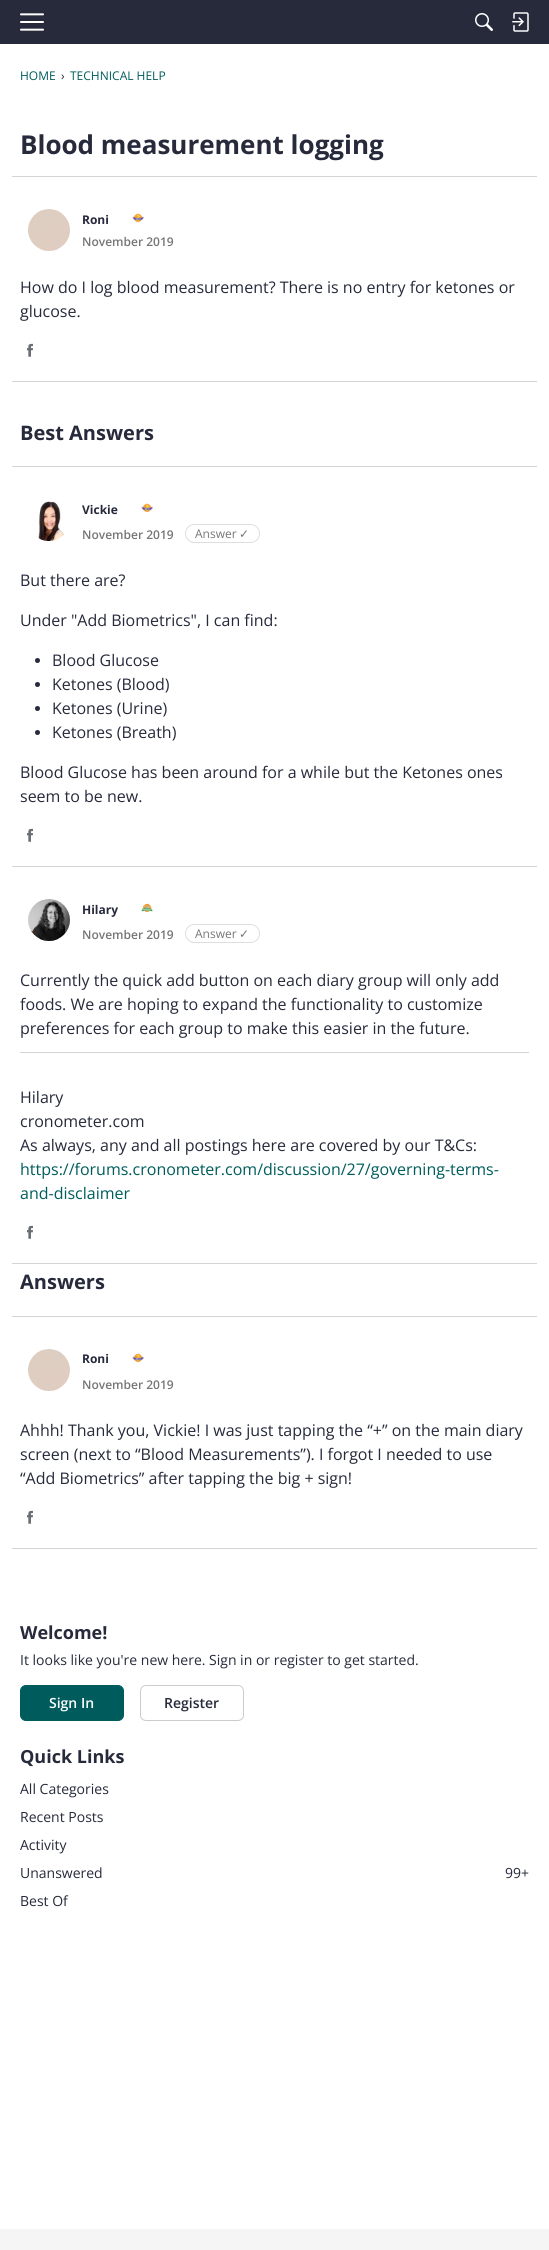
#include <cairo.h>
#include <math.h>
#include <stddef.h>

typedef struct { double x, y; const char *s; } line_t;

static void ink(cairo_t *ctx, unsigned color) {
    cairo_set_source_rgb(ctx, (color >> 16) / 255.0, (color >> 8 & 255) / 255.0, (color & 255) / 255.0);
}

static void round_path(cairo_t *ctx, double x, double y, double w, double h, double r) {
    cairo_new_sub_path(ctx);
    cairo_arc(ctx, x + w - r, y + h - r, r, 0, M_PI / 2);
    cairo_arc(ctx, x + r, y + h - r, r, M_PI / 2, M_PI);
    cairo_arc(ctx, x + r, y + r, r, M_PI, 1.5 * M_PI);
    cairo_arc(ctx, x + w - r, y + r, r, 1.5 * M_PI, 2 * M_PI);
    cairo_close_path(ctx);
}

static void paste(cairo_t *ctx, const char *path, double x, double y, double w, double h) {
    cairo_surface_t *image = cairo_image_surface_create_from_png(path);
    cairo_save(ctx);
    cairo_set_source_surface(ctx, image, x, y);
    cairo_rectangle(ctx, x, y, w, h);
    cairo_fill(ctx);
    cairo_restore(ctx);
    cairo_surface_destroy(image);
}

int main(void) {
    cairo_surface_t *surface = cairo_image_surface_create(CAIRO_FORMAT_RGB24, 549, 2250);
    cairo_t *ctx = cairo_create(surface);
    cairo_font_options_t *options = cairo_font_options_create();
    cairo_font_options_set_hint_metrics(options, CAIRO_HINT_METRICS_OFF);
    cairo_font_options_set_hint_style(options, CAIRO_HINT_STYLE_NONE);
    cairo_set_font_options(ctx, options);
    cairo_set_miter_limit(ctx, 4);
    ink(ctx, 0xFFFFFF);
    cairo_paint(ctx);
    ink(ctx, 0x262A3B);
    cairo_rectangle(ctx, 0, 0, 549, 44);
    cairo_fill(ctx);
    paste(ctx, "media/1.png", 20, 13, 24, 18);
    paste(ctx, "media/2.png", 475, 13, 18, 18);
    paste(ctx, "media/3.png", 512, 12, 17, 20);
    cairo_select_font_face(ctx, "Open Sans", CAIRO_FONT_SLANT_NORMAL, CAIRO_FONT_WEIGHT_NORMAL);
    cairo_set_font_size(ctx, 12);
    ink(ctx, 0x005C5C);
    cairo_move_to(ctx, 20, 80);
    cairo_show_text(ctx, "HOME");
    ink(ctx, 0x262A3B);
    cairo_move_to(ctx, 61, 80);
    cairo_show_text(ctx, "›");
    ink(ctx, 0x005C5C);
    cairo_move_to(ctx, 70, 80);
    cairo_show_text(ctx, "TECHNICAL HELP");
    cairo_select_font_face(ctx, "Open Sans", CAIRO_FONT_SLANT_NORMAL, CAIRO_FONT_WEIGHT_BOLD);
    cairo_set_font_size(ctx, 26);
    ink(ctx, 0x262A3B);
    cairo_move_to(ctx, 20, 154);
    cairo_show_text(ctx, "Blood measurement logging");
    ink(ctx, 0xD4D4D8);
    cairo_rectangle(ctx, 12, 176, 525, 1);
    cairo_fill(ctx);
    paste(ctx, "media/4.png", 28, 209, 42, 42);
    cairo_set_font_size(ctx, 12);
    ink(ctx, 0x262A3B);
    cairo_move_to(ctx, 82, 224);
    cairo_show_text(ctx, "Roni");
    paste(ctx, "media/5.png", 132, 213, 12, 10);
    cairo_select_font_face(ctx, "Open Sans SemiBold", CAIRO_FONT_SLANT_NORMAL, CAIRO_FONT_WEIGHT_NORMAL);
    ink(ctx, 0x767676);
    cairo_move_to(ctx, 82, 246);
    cairo_show_text(ctx, "November 2019");
    cairo_select_font_face(ctx, "Open Sans", CAIRO_FONT_SLANT_NORMAL, CAIRO_FONT_WEIGHT_NORMAL);
    cairo_set_font_size(ctx, 16);
    ink(ctx, 0x262A3B);
    cairo_move_to(ctx, 20, 293);
    cairo_show_text(ctx, "How do I log blood measurement? There is no entry for ketones or");
    cairo_move_to(ctx, 20, 317);
    cairo_show_text(ctx, "glucose.");
    paste(ctx, "media/6.png", 27, 343, 6, 14);
    ink(ctx, 0xD4D4D8);
    cairo_rectangle(ctx, 12, 381, 525, 1);
    cairo_fill(ctx);
    cairo_select_font_face(ctx, "Open Sans", CAIRO_FONT_SLANT_NORMAL, CAIRO_FONT_WEIGHT_BOLD);
    cairo_set_font_size(ctx, 20);
    ink(ctx, 0x262A3B);
    cairo_move_to(ctx, 20, 440);
    cairo_show_text(ctx, "Best Answers");
    ink(ctx, 0xD4D4D8);
    cairo_rectangle(ctx, 12, 466, 525, 1);
    cairo_fill(ctx);
    paste(ctx, "media/7.png", 38, 501, 27, 40);
    cairo_set_font_size(ctx, 12);
    ink(ctx, 0x262A3B);
    cairo_move_to(ctx, 82, 514);
    cairo_show_text(ctx, "Vickie");
    paste(ctx, "media/5.png", 141, 503, 12, 10);
    cairo_select_font_face(ctx, "Open Sans SemiBold", CAIRO_FONT_SLANT_NORMAL, CAIRO_FONT_WEIGHT_NORMAL);
    ink(ctx, 0x767676);
    cairo_move_to(ctx, 82, 539);
    cairo_show_text(ctx, "November 2019");
    round_path(ctx, 185.5, 524.5, 74, 18, 9);
    ink(ctx, 0xDDDEE0);
    cairo_set_line_width(ctx, 1);
    cairo_stroke(ctx);
    cairo_select_font_face(ctx, "Open Sans", CAIRO_FONT_SLANT_NORMAL, CAIRO_FONT_WEIGHT_NORMAL);
    ink(ctx, 0x767676);
    cairo_move_to(ctx, 195, 538);
    cairo_show_text(ctx, "Answer");
    cairo_select_font_face(ctx, "DejaVu Sans", CAIRO_FONT_SLANT_NORMAL, CAIRO_FONT_WEIGHT_NORMAL);
    cairo_move_to(ctx, 239, 538);
    cairo_show_text(ctx, "✓");
    cairo_select_font_face(ctx, "Open Sans", CAIRO_FONT_SLANT_NORMAL, CAIRO_FONT_WEIGHT_NORMAL);
    cairo_set_font_size(ctx, 16);
    ink(ctx, 0x262A3B);
    cairo_move_to(ctx, 20, 586);
    cairo_show_text(ctx, "But there are?");
    cairo_move_to(ctx, 20, 626);
    cairo_show_text(ctx, "Under \"Add Biometrics\", I can find:");
    cairo_new_path(ctx);
    cairo_arc(ctx, 37.5, 660.5, 2.5, 0, 2 * M_PI);
    cairo_fill(ctx);
    cairo_move_to(ctx, 52, 666);
    cairo_show_text(ctx, "Blood Glucose");
    cairo_new_path(ctx);
    cairo_arc(ctx, 37.5, 684.5, 2.5, 0, 2 * M_PI);
    cairo_fill(ctx);
    cairo_move_to(ctx, 52, 690);
    cairo_show_text(ctx, "Ketones (Blood)");
    cairo_new_path(ctx);
    cairo_arc(ctx, 37.5, 708.5, 2.5, 0, 2 * M_PI);
    cairo_fill(ctx);
    cairo_move_to(ctx, 52, 714);
    cairo_show_text(ctx, "Ketones (Urine)");
    cairo_new_path(ctx);
    cairo_arc(ctx, 37.5, 732.5, 2.5, 0, 2 * M_PI);
    cairo_fill(ctx);
    {
        static const line_t items[] = {
            {52, 738, "Ketones (Breath)"},
            {20, 778, "Blood Glucose has been around for a while but the Ketones ones"},
            {20, 802, "seem to be new."},
        };
        for (size_t i = 0; i < sizeof items / sizeof *items; i++) {
            cairo_move_to(ctx, items[i].x, items[i].y);
            cairo_show_text(ctx, items[i].s);
        }
    }
    paste(ctx, "media/6.png", 27, 828, 6, 14);
    ink(ctx, 0xD4D4D8);
    cairo_rectangle(ctx, 12, 866, 525, 1);
    cairo_fill(ctx);
    paste(ctx, "media/8.png", 28, 899, 42, 42);
    cairo_select_font_face(ctx, "Open Sans", CAIRO_FONT_SLANT_NORMAL, CAIRO_FONT_WEIGHT_BOLD);
    cairo_set_font_size(ctx, 12);
    ink(ctx, 0x262A3B);
    cairo_move_to(ctx, 82, 914);
    cairo_show_text(ctx, "Hilary");
    paste(ctx, "media/9.png", 141, 903, 12, 10);
    cairo_select_font_face(ctx, "Open Sans SemiBold", CAIRO_FONT_SLANT_NORMAL, CAIRO_FONT_WEIGHT_NORMAL);
    ink(ctx, 0x767676);
    cairo_move_to(ctx, 82, 939);
    cairo_show_text(ctx, "November 2019");
    round_path(ctx, 185.5, 924.5, 74, 18, 9);
    ink(ctx, 0xDDDEE0);
    cairo_stroke(ctx);
    cairo_select_font_face(ctx, "Open Sans", CAIRO_FONT_SLANT_NORMAL, CAIRO_FONT_WEIGHT_NORMAL);
    ink(ctx, 0x767676);
    cairo_move_to(ctx, 195, 938);
    cairo_show_text(ctx, "Answer");
    cairo_select_font_face(ctx, "DejaVu Sans", CAIRO_FONT_SLANT_NORMAL, CAIRO_FONT_WEIGHT_NORMAL);
    cairo_move_to(ctx, 239, 938);
    cairo_show_text(ctx, "✓");
    cairo_select_font_face(ctx, "Open Sans", CAIRO_FONT_SLANT_NORMAL, CAIRO_FONT_WEIGHT_NORMAL);
    cairo_set_font_size(ctx, 16);
    ink(ctx, 0x262A3B);
    {
        static const line_t items[] = {
            {20, 986, "Currently the quick add button on each diary group will only add"},
            {20, 1010, "foods. We are hoping to expand the functionality to customize"},
            {20, 1034, "preferences for each group to make this easier in the future."},
        };
        for (size_t i = 0; i < sizeof items / sizeof *items; i++) {
            cairo_move_to(ctx, items[i].x, items[i].y);
            cairo_show_text(ctx, items[i].s);
        }
    }
    ink(ctx, 0xD4D4D8);
    cairo_rectangle(ctx, 20, 1052, 509, 1);
    cairo_fill(ctx);
    ink(ctx, 0x262A3B);
    {
        static const line_t items[] = {
            {20, 1103, "Hilary"},
            {20, 1127, "cronometer.com"},
            {20, 1151, "As always, any and all postings here are covered by our T&Cs:"},
        };
        for (size_t i = 0; i < sizeof items / sizeof *items; i++) {
            cairo_move_to(ctx, items[i].x, items[i].y);
            cairo_show_text(ctx, items[i].s);
        }
    }
    ink(ctx, 0x005C5C);
    cairo_move_to(ctx, 20, 1175);
    cairo_show_text(ctx, "https://forums.cronometer.com/discussion/27/governing-terms-");
    cairo_move_to(ctx, 20, 1199);
    cairo_show_text(ctx, "and-disclaimer");
    paste(ctx, "media/6.png", 27, 1225, 6, 14);
    ink(ctx, 0xD4D4D8);
    cairo_rectangle(ctx, 12, 1263, 525, 1);
    cairo_fill(ctx);
    cairo_select_font_face(ctx, "Open Sans", CAIRO_FONT_SLANT_NORMAL, CAIRO_FONT_WEIGHT_BOLD);
    cairo_set_font_size(ctx, 20);
    ink(ctx, 0x262A3B);
    cairo_move_to(ctx, 20, 1289);
    cairo_show_text(ctx, "Answers");
    ink(ctx, 0xD4D4D8);
    cairo_rectangle(ctx, 12, 1316, 525, 1);
    cairo_fill(ctx);
    paste(ctx, "media/10.png", 28, 1349, 42, 42);
    cairo_set_font_size(ctx, 12);
    ink(ctx, 0x262A3B);
    cairo_move_to(ctx, 82, 1363);
    cairo_show_text(ctx, "Roni");
    paste(ctx, "media/5.png", 132, 1353, 12, 10);
    cairo_select_font_face(ctx, "Open Sans SemiBold", CAIRO_FONT_SLANT_NORMAL, CAIRO_FONT_WEIGHT_NORMAL);
    ink(ctx, 0x767676);
    cairo_move_to(ctx, 82, 1389);
    cairo_show_text(ctx, "November 2019");
    cairo_select_font_face(ctx, "Open Sans", CAIRO_FONT_SLANT_NORMAL, CAIRO_FONT_WEIGHT_NORMAL);
    cairo_set_font_size(ctx, 16);
    ink(ctx, 0x262A3B);
    {
        static const line_t items[] = {
            {20, 1436, "Ahhh! Thank you, Vickie! I was just tapping the “+” on the main diary"},
            {20, 1460, "screen (next to “Blood Measurements”). I forgot I needed to use"},
            {20, 1484, "“Add Biometrics” after tapping the big + sign!"},
        };
        for (size_t i = 0; i < sizeof items / sizeof *items; i++) {
            cairo_move_to(ctx, items[i].x, items[i].y);
            cairo_show_text(ctx, items[i].s);
        }
    }
    paste(ctx, "media/6.png", 27, 1510, 6, 14);
    ink(ctx, 0xD4D4D8);
    cairo_rectangle(ctx, 12, 1548, 525, 1);
    cairo_fill(ctx);
    cairo_select_font_face(ctx, "Open Sans", CAIRO_FONT_SLANT_NORMAL, CAIRO_FONT_WEIGHT_BOLD);
    cairo_set_font_size(ctx, 18);
    ink(ctx, 0x262A3B);
    cairo_move_to(ctx, 20, 1639);
    cairo_show_text(ctx, "Welcome!");
    cairo_select_font_face(ctx, "Open Sans", CAIRO_FONT_SLANT_NORMAL, CAIRO_FONT_WEIGHT_NORMAL);
    cairo_set_font_size(ctx, 14);
    cairo_move_to(ctx, 20, 1665);
    cairo_show_text(ctx, "It looks like you're new here. Sign in or register to get started.");
    ink(ctx, 0x005C5C);
    round_path(ctx, 20.5, 1685.5, 103, 35, 5.5);
    cairo_fill_preserve(ctx);
    cairo_stroke(ctx);
    cairo_select_font_face(ctx, "Open Sans SemiBold", CAIRO_FONT_SLANT_NORMAL, CAIRO_FONT_WEIGHT_NORMAL);
    ink(ctx, 0xFFFFFF);
    cairo_move_to(ctx, 49, 1708);
    cairo_show_text(ctx, "Sign In");
    round_path(ctx, 140.5, 1685.5, 103, 35, 5.5);
    ink(ctx, 0xCBCCD0);
    cairo_stroke(ctx);
    ink(ctx, 0x262A3B);
    cairo_move_to(ctx, 164, 1708);
    cairo_show_text(ctx, "Register");
    cairo_select_font_face(ctx, "Open Sans", CAIRO_FONT_SLANT_NORMAL, CAIRO_FONT_WEIGHT_BOLD);
    cairo_set_font_size(ctx, 18);
    cairo_move_to(ctx, 20, 1763);
    cairo_show_text(ctx, "Quick Links");
    cairo_select_font_face(ctx, "Open Sans", CAIRO_FONT_SLANT_NORMAL, CAIRO_FONT_WEIGHT_NORMAL);
    cairo_set_font_size(ctx, 14);
    {
        static const line_t items[] = {
            {20, 1794, "All Categories"},
            {20, 1822, "Recent Posts"},
            {20, 1850, "Activity"},
            {20, 1878, "Unanswered"},
            {505, 1878, "99+"},
            {20, 1906, "Best Of"},
        };
        for (size_t i = 0; i < sizeof items / sizeof *items; i++) {
            cairo_move_to(ctx, items[i].x, items[i].y);
            cairo_show_text(ctx, items[i].s);
        }
    }
    ink(ctx, 0xF5F5F6);
    cairo_rectangle(ctx, 0, 2229, 549, 21);
    cairo_fill(ctx);
    cairo_surface_write_to_png(surface, "image.png");
    cairo_font_options_destroy(options);
    cairo_destroy(ctx);
    cairo_surface_destroy(surface);
    return 0;
}
